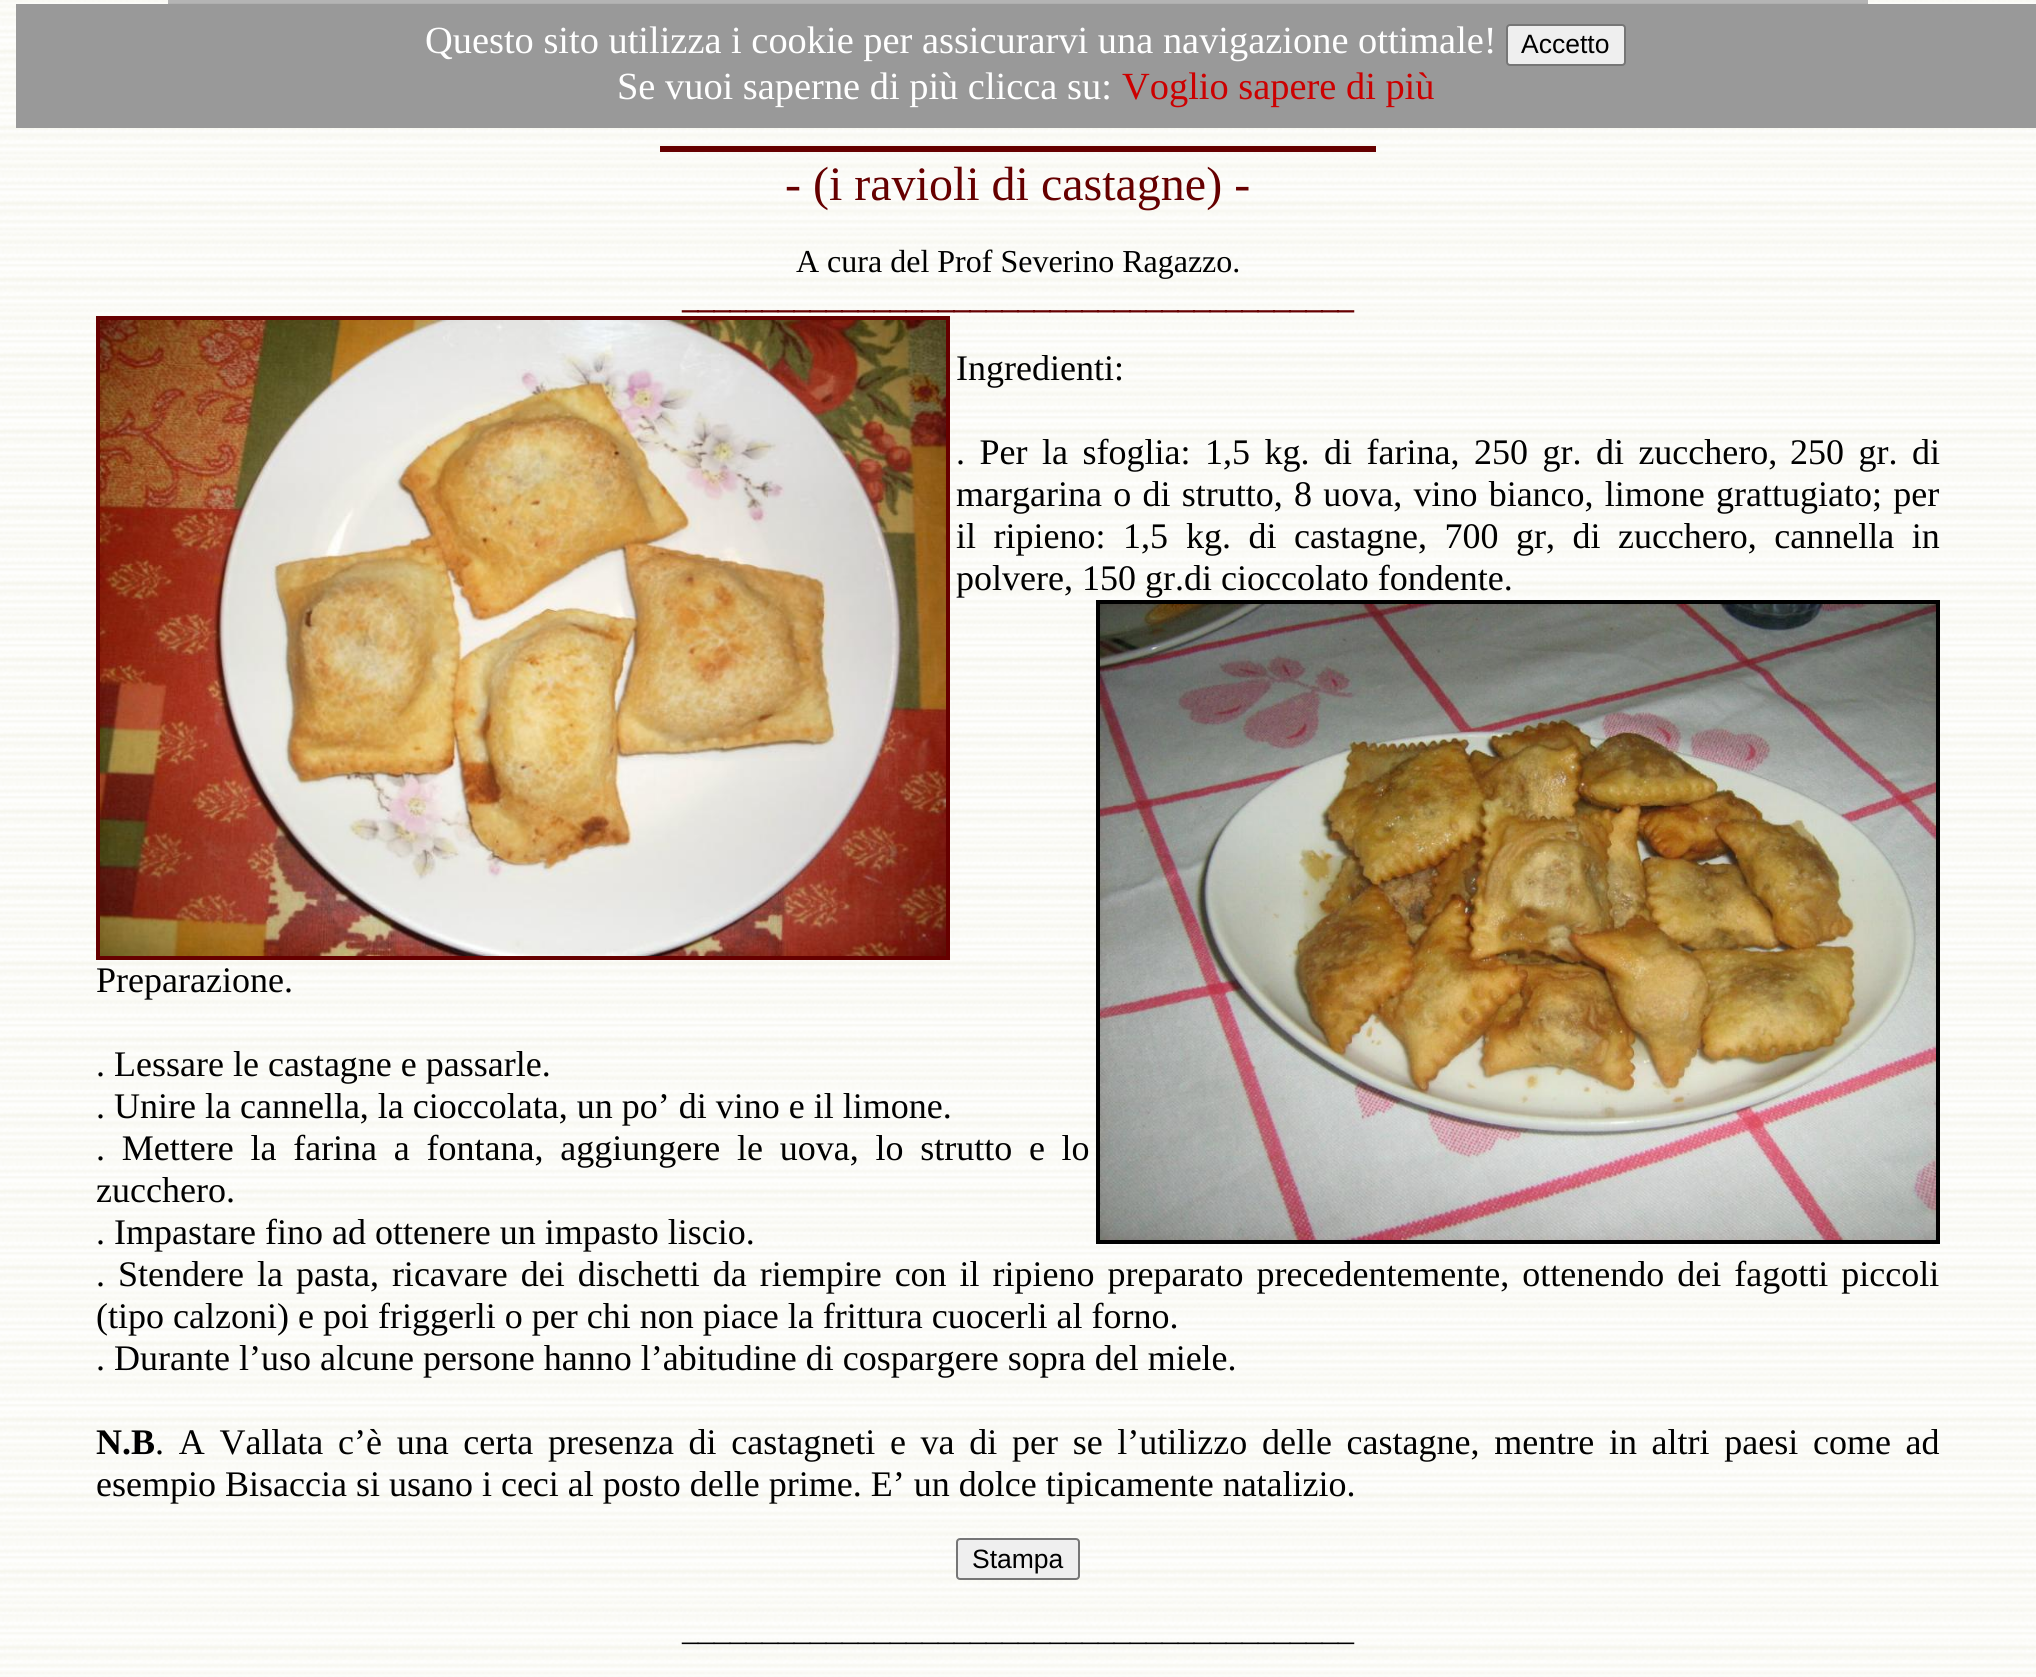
#include <cairo.h>
#include <math.h>
#include <stddef.h>

typedef struct { double x, y; const char *s; } line_t;

static void ink(cairo_t *ctx, unsigned color) {
    cairo_set_source_rgb(ctx, (color >> 16) / 255.0, (color >> 8 & 255) / 255.0, (color & 255) / 255.0);
}

static void write_spaced(cairo_t *ctx, double x, double y, const char *s, double letter, double word) {
    cairo_move_to(ctx, x, y);
    while (*s) {
        char ch[5] = {0};
        int n = 0;
        do ch[n++] = *s++; while ((*s & 0xC0) == 0x80);
        cairo_show_text(ctx, ch);
        cairo_rel_move_to(ctx, letter + word * (*ch == ' '), 0);
    }
}

static void round_path(cairo_t *ctx, double x, double y, double w, double h, double r) {
    cairo_new_sub_path(ctx);
    cairo_arc(ctx, x + w - r, y + h - r, r, 0, M_PI / 2);
    cairo_arc(ctx, x + r, y + h - r, r, M_PI / 2, M_PI);
    cairo_arc(ctx, x + r, y + r, r, M_PI, 1.5 * M_PI);
    cairo_arc(ctx, x + w - r, y + r, r, 1.5 * M_PI, 2 * M_PI);
    cairo_close_path(ctx);
}

static void paste(cairo_t *ctx, const char *path, double x, double y, double w, double h) {
    cairo_surface_t *image = cairo_image_surface_create_from_png(path);
    cairo_save(ctx);
    cairo_set_source_surface(ctx, image, x, y);
    cairo_rectangle(ctx, x, y, w, h);
    cairo_fill(ctx);
    cairo_restore(ctx);
    cairo_surface_destroy(image);
}

int main(void) {
    cairo_surface_t *surface = cairo_image_surface_create(CAIRO_FORMAT_RGB24, 2036, 1677);
    cairo_t *ctx = cairo_create(surface);
    cairo_font_options_t *options = cairo_font_options_create();
    cairo_font_options_set_hint_metrics(options, CAIRO_HINT_METRICS_OFF);
    cairo_font_options_set_hint_style(options, CAIRO_HINT_STYLE_NONE);
    cairo_set_font_options(ctx, options);
    cairo_set_miter_limit(ctx, 4);
    ink(ctx, 0xFFFFFF);
    cairo_paint(ctx);
    paste(ctx, "media/1.png", 0, 0, 2036, 1677);
    paste(ctx, "media/2.png", 168, 0, 1700, 4);
    ink(ctx, 0x999999);
    cairo_rectangle(ctx, 16, 4, 2020, 124);
    cairo_fill(ctx);
    cairo_select_font_face(ctx, "Liberation Serif", CAIRO_FONT_SLANT_NORMAL, CAIRO_FONT_WEIGHT_NORMAL);
    cairo_set_font_size(ctx, 38.4);
    ink(ctx, 0xFFFFFF);
    cairo_move_to(ctx, 425, 53);
    cairo_show_text(ctx, "Questo sito utilizza i cookie per assicurarvi una navigazione ottimale!");
    ink(ctx, 0xEFEFEF);
    round_path(ctx, 1507, 25, 118, 40, 3);
    cairo_fill_preserve(ctx);
    ink(ctx, 0x767676);
    cairo_stroke(ctx);
    cairo_select_font_face(ctx, "Liberation Sans", CAIRO_FONT_SLANT_NORMAL, CAIRO_FONT_WEIGHT_NORMAL);
    cairo_set_font_size(ctx, 26.5);
    ink(ctx, 0x000000);
    cairo_move_to(ctx, 1521, 53);
    cairo_show_text(ctx, "Accetto");
    cairo_select_font_face(ctx, "Liberation Serif", CAIRO_FONT_SLANT_NORMAL, CAIRO_FONT_WEIGHT_NORMAL);
    cairo_set_font_size(ctx, 38.4);
    ink(ctx, 0xFFFFFF);
    cairo_move_to(ctx, 617, 99);
    cairo_show_text(ctx, "Se vuoi saperne di più clicca su:");
    ink(ctx, 0xCC0000);
    cairo_move_to(ctx, 1122, 99);
    cairo_show_text(ctx, "Voglio sapere di più");
    ink(ctx, 0x660000);
    cairo_rectangle(ctx, 660, 146, 716, 6);
    cairo_fill(ctx);
    cairo_set_font_size(ctx, 48);
    cairo_move_to(ctx, 785, 200);
    cairo_show_text(ctx, "- (i ravioli di castagne) -");
    cairo_set_font_size(ctx, 32);
    ink(ctx, 0x000000);
    cairo_move_to(ctx, 796, 272);
    cairo_show_text(ctx, "A cura del Prof Severino Ragazzo.");
    cairo_select_font_face(ctx, "Liberation Serif", CAIRO_FONT_SLANT_NORMAL, CAIRO_FONT_WEIGHT_BOLD);
    ink(ctx, 0x660000);
    cairo_move_to(ctx, 682, 308);
    cairo_show_text(ctx, "__________________________________________");
    cairo_rectangle(ctx, 98, 318, 850, 640);
    cairo_set_line_width(ctx, 4);
    cairo_stroke(ctx);
    paste(ctx, "media/3.png", 100, 320, 846, 636);
    cairo_select_font_face(ctx, "Liberation Serif", CAIRO_FONT_SLANT_NORMAL, CAIRO_FONT_WEIGHT_NORMAL);
    cairo_set_font_size(ctx, 36);
    ink(ctx, 0x000000);
    cairo_move_to(ctx, 956, 380);
    cairo_show_text(ctx, "Ingredienti:");
    {
        static const line_t items[] = {
            {956, 464, ". Per"},
            {1042, 464, "la sfoglia: 1,5 kg. di farina, 250 gr. di zucchero,"},
            {1790, 464, "250 gr. di"},
        };
        for (size_t i = 0; i < sizeof items / sizeof *items; i++) {
            write_spaced(ctx, items[i].x, items[i].y, items[i].s, 0, 5.5);
        }
    }
    write_spaced(ctx, 956, 506, "margarina o di strutto, 8 uova, vino bianco, limone grattugiato; per", 0, 2.25);
    write_spaced(ctx, 956, 548, "il ripieno: 1,5", 0, 8.5);
    write_spaced(ctx, 1186, 548, "kg. di castagne, 700 gr, di zucchero, cannella in", 0, 8.5);
    cairo_move_to(ctx, 956, 590);
    cairo_show_text(ctx, "polvere, 150 gr.di cioccolato fondente.");
    cairo_move_to(ctx, 96, 992);
    cairo_show_text(ctx, "Preparazione.");
    cairo_rectangle(ctx, 1098, 602, 840, 640);
    cairo_stroke(ctx);
    paste(ctx, "media/4.png", 1100, 604, 836, 636);
    cairo_move_to(ctx, 96, 1076);
    cairo_show_text(ctx, ". Lessare le castagne e passarle.");
    cairo_move_to(ctx, 96, 1118);
    cairo_show_text(ctx, ". Unire la cannella, la cioccolata, un po’ di vino e il limone.");
    write_spaced(ctx, 96, 1160, ". Mettere la farina a fontana, aggiungere le uova, lo strutto e lo", 0, 7.75);
    cairo_move_to(ctx, 96, 1202);
    cairo_show_text(ctx, "zucchero.");
    cairo_move_to(ctx, 96, 1244);
    cairo_show_text(ctx, ". Impastare fino ad ottenere un impasto liscio.");
    write_spaced(ctx, 96, 1286, ". Stendere la pasta, ricavare dei dischetti da riempire con il ripieno preparato precedentemente, ottenendo dei fagotti piccoli", 0, 4);
    cairo_move_to(ctx, 96, 1328);
    cairo_show_text(ctx, "(tipo calzoni) e poi friggerli o per chi non piace la frittura cuocerli al forno.");
    cairo_move_to(ctx, 96, 1370);
    cairo_show_text(ctx, ". Durante l’uso alcune persone hanno l’abitudine di cospargere sopra del miele.");
    cairo_select_font_face(ctx, "Liberation Serif", CAIRO_FONT_SLANT_NORMAL, CAIRO_FONT_WEIGHT_BOLD);
    cairo_move_to(ctx, 96, 1454);
    cairo_show_text(ctx, "N.B");
    cairo_select_font_face(ctx, "Liberation Serif", CAIRO_FONT_SLANT_NORMAL, CAIRO_FONT_WEIGHT_NORMAL);
    write_spaced(ctx, 155, 1454, ". A Vallata c’è una certa presenza di castagneti e va di per se l’utilizzo delle castagne, mentre in altri paesi come ad", 0, 5.7);
    cairo_move_to(ctx, 96, 1496);
    cairo_show_text(ctx, "esempio Bisaccia si usano i ceci al posto delle prime. E’ un dolce tipicamente natalizio.");
    ink(ctx, 0xEFEFEF);
    round_path(ctx, 957, 1539, 122, 40, 3);
    cairo_fill_preserve(ctx);
    ink(ctx, 0x767676);
    cairo_set_line_width(ctx, 2);
    cairo_stroke(ctx);
    cairo_select_font_face(ctx, "Liberation Sans", CAIRO_FONT_SLANT_NORMAL, CAIRO_FONT_WEIGHT_NORMAL);
    cairo_set_font_size(ctx, 26.5);
    ink(ctx, 0x000000);
    cairo_move_to(ctx, 972, 1568);
    cairo_show_text(ctx, "Stampa");
    cairo_select_font_face(ctx, "Liberation Serif", CAIRO_FONT_SLANT_NORMAL, CAIRO_FONT_WEIGHT_NORMAL);
    cairo_set_font_size(ctx, 32);
    cairo_move_to(ctx, 682, 1640);
    cairo_show_text(ctx, "__________________________________________");
    cairo_surface_write_to_png(surface, "image.png");
    cairo_font_options_destroy(options);
    cairo_destroy(ctx);
    cairo_surface_destroy(surface);
    return 0;
}
